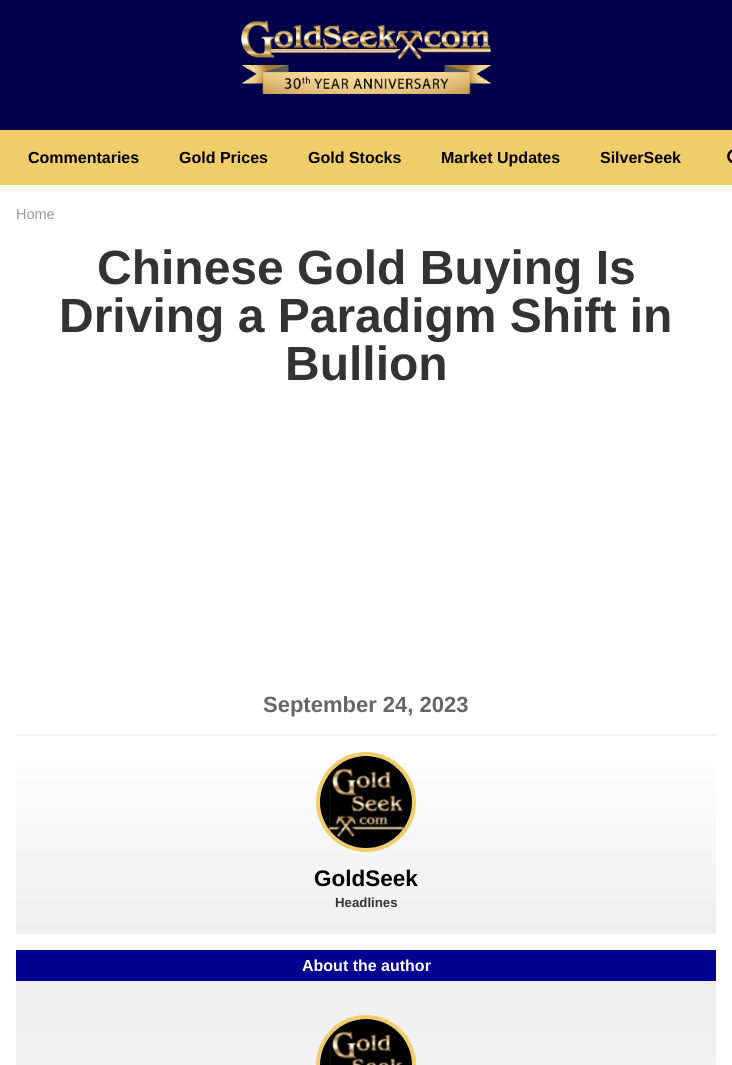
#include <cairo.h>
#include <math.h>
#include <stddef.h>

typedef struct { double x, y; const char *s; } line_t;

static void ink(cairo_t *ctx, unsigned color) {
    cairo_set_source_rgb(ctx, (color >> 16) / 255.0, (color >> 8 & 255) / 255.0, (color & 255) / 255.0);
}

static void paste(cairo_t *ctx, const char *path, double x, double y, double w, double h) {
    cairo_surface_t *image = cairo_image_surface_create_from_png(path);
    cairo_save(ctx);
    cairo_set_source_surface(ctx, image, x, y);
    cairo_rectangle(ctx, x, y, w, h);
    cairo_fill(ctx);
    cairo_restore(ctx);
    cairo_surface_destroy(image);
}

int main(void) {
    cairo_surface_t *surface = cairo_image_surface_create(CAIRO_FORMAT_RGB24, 732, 1065);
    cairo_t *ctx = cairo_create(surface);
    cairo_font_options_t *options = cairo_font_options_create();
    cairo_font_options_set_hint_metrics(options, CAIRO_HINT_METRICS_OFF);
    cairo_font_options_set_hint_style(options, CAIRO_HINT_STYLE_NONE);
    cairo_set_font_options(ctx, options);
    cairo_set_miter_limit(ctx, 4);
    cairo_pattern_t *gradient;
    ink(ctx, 0x01004B);
    cairo_paint(ctx);
    paste(ctx, "media/1.png", 241, 20, 250, 74);
    ink(ctx, 0xF1CC6A);
    cairo_rectangle(ctx, 0, 130, 732, 55);
    cairo_fill(ctx);
    cairo_select_font_face(ctx, "Liberation Sans", CAIRO_FONT_SLANT_NORMAL, CAIRO_FONT_WEIGHT_BOLD);
    cairo_set_font_size(ctx, 16);
    ink(ctx, 0x000000);
    {
        static const line_t items[] = {
            {28, 163, "Commentaries"},
            {179, 163, "Gold Prices"},
            {308, 163, "Gold Stocks"},
            {441, 163, "Market Updates"},
            {600, 163, "SilverSeek"},
        };
        for (size_t i = 0; i < sizeof items / sizeof *items; i++) {
            cairo_move_to(ctx, items[i].x, items[i].y);
            cairo_show_text(ctx, items[i].s);
        }
    }
    paste(ctx, "media/2.png", 727, 149, 5, 14);
    ink(ctx, 0xFFFFFF);
    cairo_rectangle(ctx, 0, 185, 732, 880);
    cairo_fill(ctx);
    cairo_select_font_face(ctx, "Liberation Sans", CAIRO_FONT_SLANT_NORMAL, CAIRO_FONT_WEIGHT_NORMAL);
    cairo_set_font_size(ctx, 14.5);
    ink(ctx, 0x999999);
    cairo_move_to(ctx, 16, 219);
    cairo_show_text(ctx, "Home");
    cairo_select_font_face(ctx, "Liberation Sans", CAIRO_FONT_SLANT_NORMAL, CAIRO_FONT_WEIGHT_BOLD);
    cairo_set_font_size(ctx, 48);
    ink(ctx, 0x333333);
    {
        static const line_t items[] = {
            {97, 284, "Chinese Gold Buying Is"},
            {59, 332, "Driving a Paradigm Shift in"},
            {285, 380, "Bullion"},
        };
        for (size_t i = 0; i < sizeof items / sizeof *items; i++) {
            cairo_move_to(ctx, items[i].x, items[i].y);
            cairo_show_text(ctx, items[i].s);
        }
    }
    cairo_set_font_size(ctx, 22);
    ink(ctx, 0x666666);
    cairo_move_to(ctx, 263, 712);
    cairo_show_text(ctx, "September 24, 2023");
    gradient = cairo_pattern_create_linear(366, 540, 366, 736);
    cairo_pattern_add_color_stop_rgba(gradient, 0, 1, 1, 1, 1);
    cairo_pattern_add_color_stop_rgba(gradient, 1, 0.937, 0.937, 0.937, 1);
    cairo_set_source(ctx, gradient);
    cairo_pattern_destroy(gradient);
    cairo_rectangle(ctx, 16, 734, 700, 2);
    cairo_fill(ctx);
    gradient = cairo_pattern_create_linear(366, 736, 366, 932);
    cairo_pattern_add_color_stop_rgba(gradient, 0, 1, 1, 1, 1);
    cairo_pattern_add_color_stop_rgba(gradient, 1, 0.937, 0.937, 0.937, 1);
    cairo_set_source(ctx, gradient);
    cairo_pattern_destroy(gradient);
    cairo_rectangle(ctx, 16, 767, 700, 165);
    cairo_fill(ctx);
    ink(ctx, 0xEFEFEF);
    cairo_rectangle(ctx, 16, 932, 700, 2);
    cairo_fill(ctx);
    cairo_arc(ctx, 366, 802, 48, 0, 2 * M_PI);
    ink(ctx, 0xF1CC6A);
    cairo_set_line_width(ctx, 4);
    cairo_stroke(ctx);
    paste(ctx, "media/3.png", 320, 756, 92, 92);
    cairo_set_font_size(ctx, 22.5);
    ink(ctx, 0x000000);
    cairo_move_to(ctx, 314, 886);
    cairo_show_text(ctx, "GoldSeek");
    cairo_set_font_size(ctx, 13.25);
    ink(ctx, 0x333333);
    cairo_move_to(ctx, 335, 907);
    cairo_show_text(ctx, "Headlines");
    ink(ctx, 0x020090);
    cairo_rectangle(ctx, 16, 950, 700, 31);
    cairo_fill(ctx);
    cairo_set_font_size(ctx, 16);
    ink(ctx, 0xFFFFFF);
    cairo_move_to(ctx, 302, 971);
    cairo_show_text(ctx, "About the author");
    gradient = cairo_pattern_create_linear(366, 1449, 366, 983);
    cairo_pattern_add_color_stop_rgba(gradient, 0, 1, 1, 1, 1);
    cairo_pattern_add_color_stop_rgba(gradient, 1, 0.937, 0.937, 0.937, 1);
    cairo_set_source(ctx, gradient);
    cairo_pattern_destroy(gradient);
    cairo_rectangle(ctx, 16, 983, 700, 82);
    cairo_fill(ctx);
    ink(ctx, 0xEFEFEF);
    cairo_rectangle(ctx, 16, 981, 700, 2);
    cairo_fill(ctx);
    cairo_arc(ctx, 366, 1065, 48, 0, 2 * M_PI);
    ink(ctx, 0xF1CC6A);
    cairo_stroke(ctx);
    paste(ctx, "media/4.png", 320, 1019, 92, 46);
    cairo_surface_write_to_png(surface, "image.png");
    cairo_font_options_destroy(options);
    cairo_destroy(ctx);
    cairo_surface_destroy(surface);
    return 0;
}
